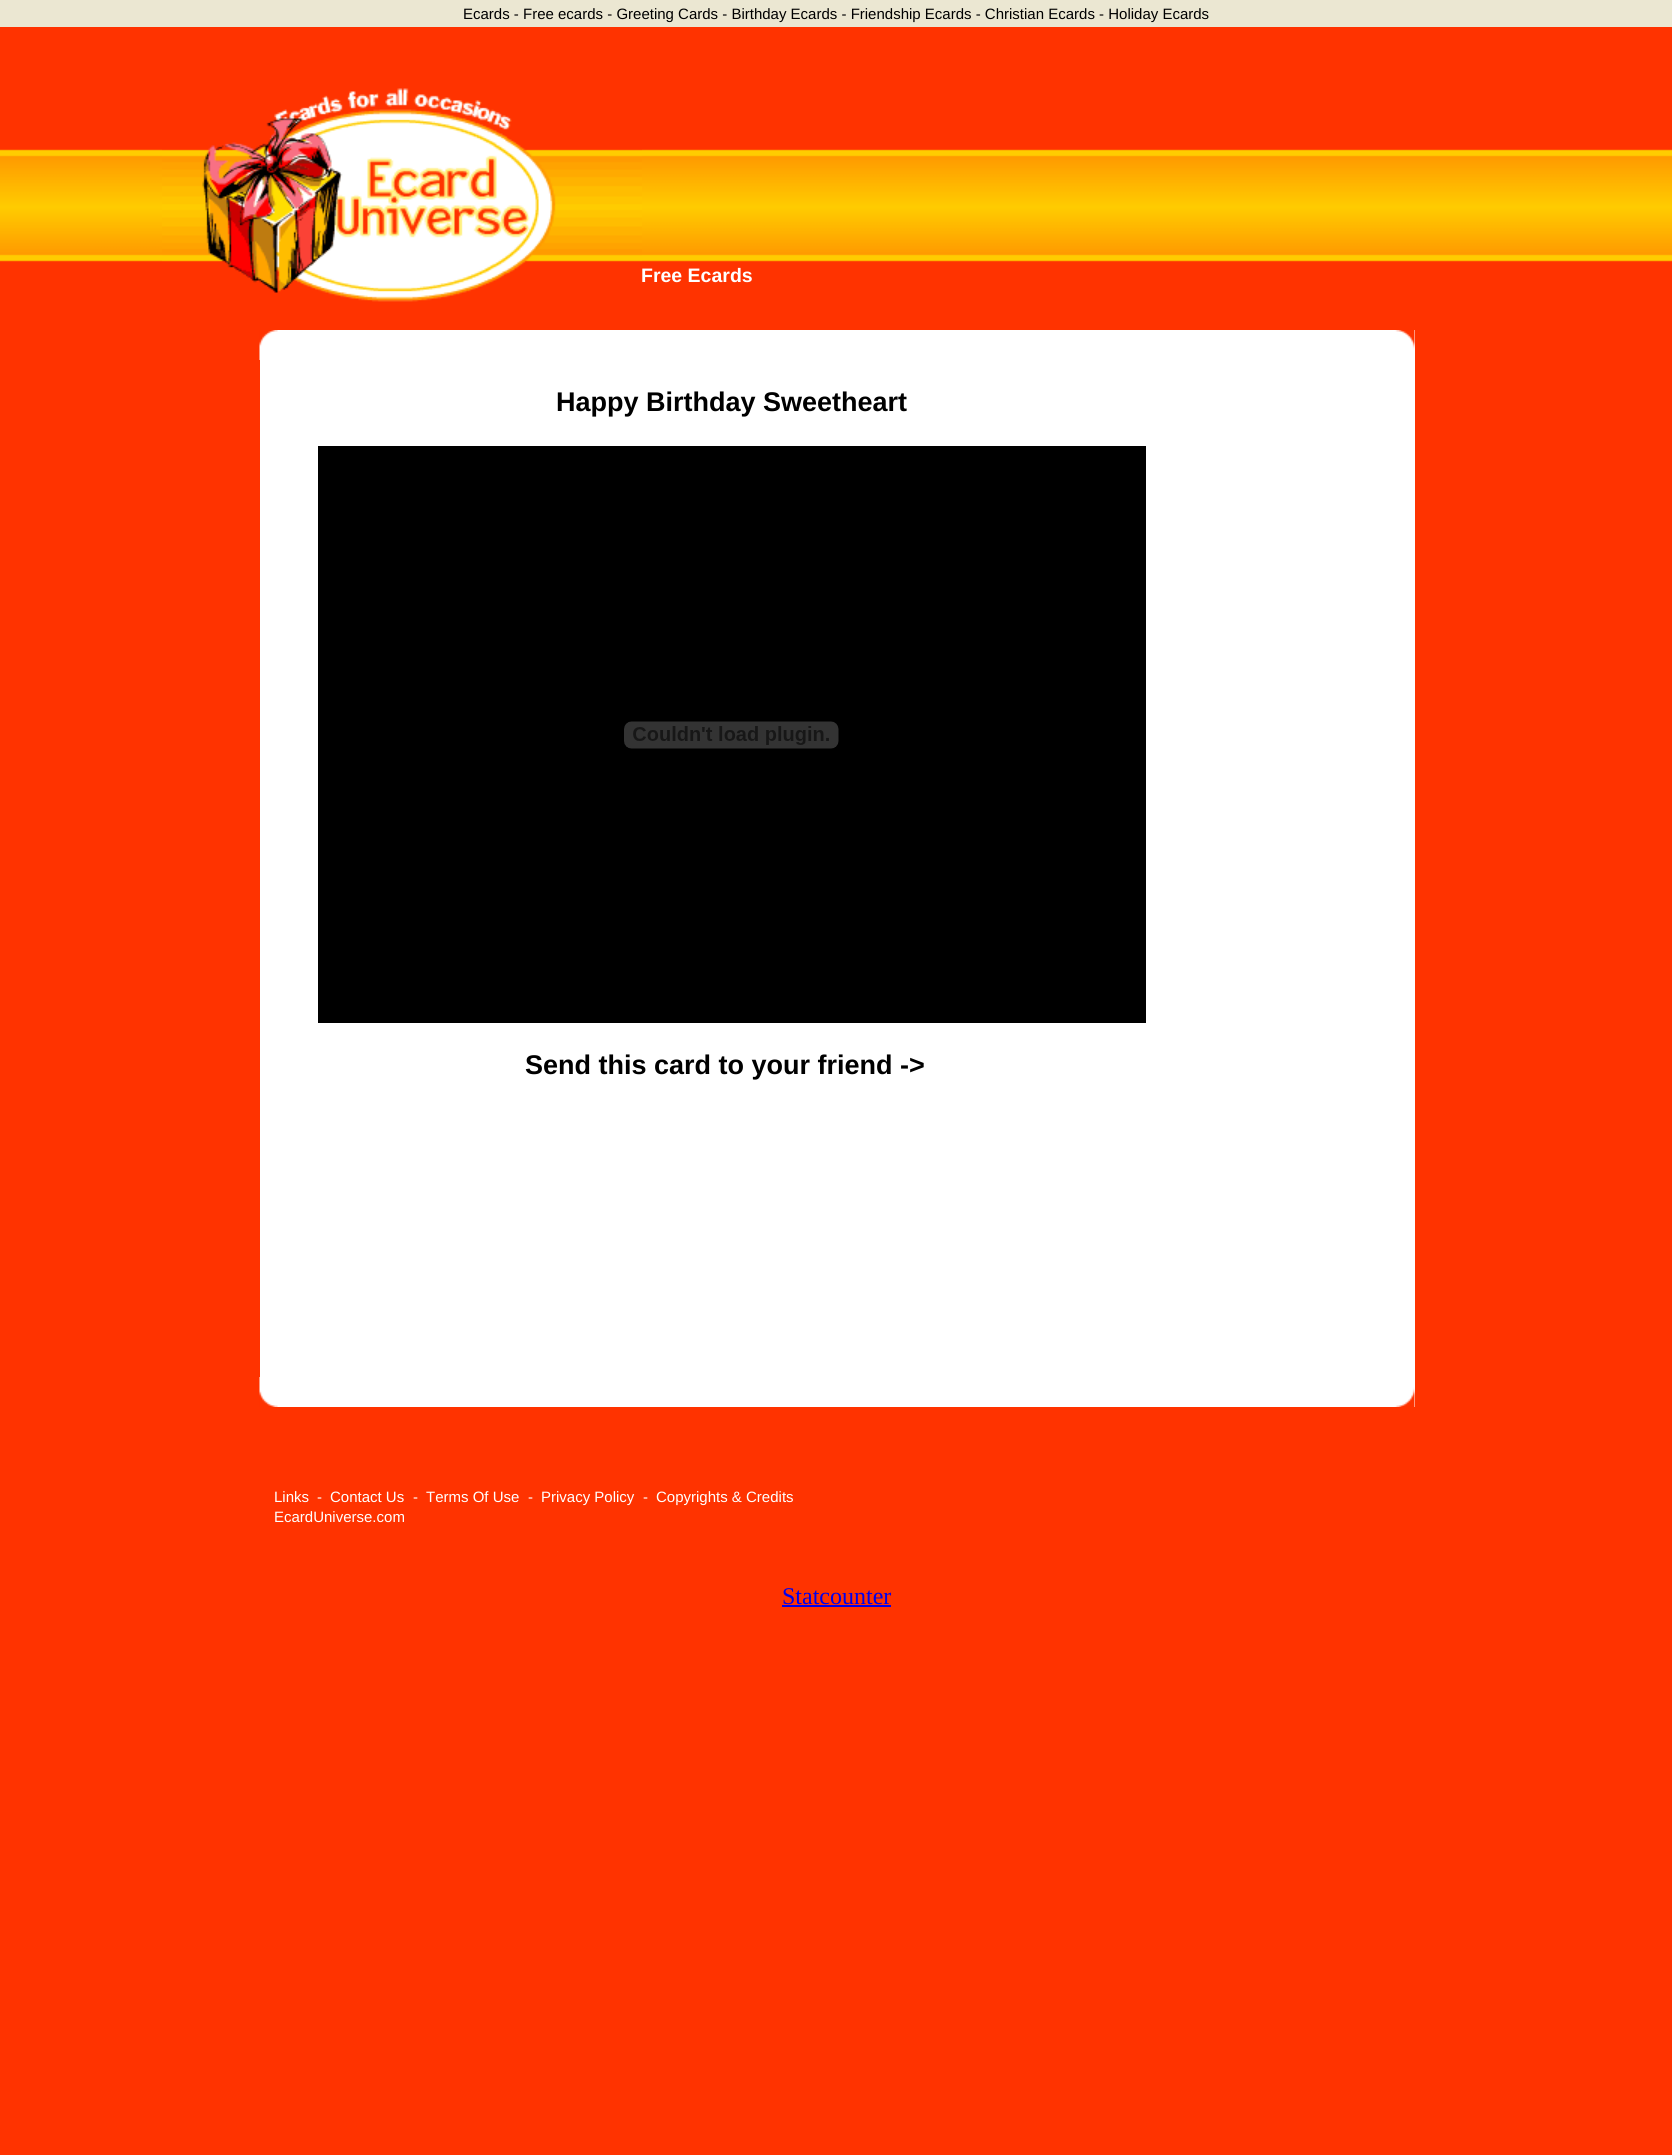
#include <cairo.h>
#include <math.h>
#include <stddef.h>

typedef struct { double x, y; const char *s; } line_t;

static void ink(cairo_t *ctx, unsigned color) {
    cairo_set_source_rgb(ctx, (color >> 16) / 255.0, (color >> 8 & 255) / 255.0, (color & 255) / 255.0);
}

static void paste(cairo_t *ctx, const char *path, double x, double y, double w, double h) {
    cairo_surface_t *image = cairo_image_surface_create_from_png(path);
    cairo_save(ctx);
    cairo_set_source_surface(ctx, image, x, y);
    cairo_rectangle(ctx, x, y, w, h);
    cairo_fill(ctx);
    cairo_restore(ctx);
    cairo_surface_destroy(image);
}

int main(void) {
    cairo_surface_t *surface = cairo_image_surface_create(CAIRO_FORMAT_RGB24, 1672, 2155);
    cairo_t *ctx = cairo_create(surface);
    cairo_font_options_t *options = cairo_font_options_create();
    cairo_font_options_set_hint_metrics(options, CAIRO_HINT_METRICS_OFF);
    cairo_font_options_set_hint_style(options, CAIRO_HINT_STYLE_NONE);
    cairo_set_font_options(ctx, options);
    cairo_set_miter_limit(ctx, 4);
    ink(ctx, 0xFF3300);
    cairo_paint(ctx);
    ink(ctx, 0xEBE7D2);
    cairo_rectangle(ctx, 0, 0, 1672, 27);
    cairo_fill(ctx);
    cairo_select_font_face(ctx, "Liberation Sans", CAIRO_FONT_SLANT_NORMAL, CAIRO_FONT_WEIGHT_NORMAL);
    cairo_set_font_size(ctx, 15);
    ink(ctx, 0x000000);
    cairo_move_to(ctx, 463, 19);
    cairo_show_text(ctx, "Ecards - Free ecards - Greeting Cards - Birthday Ecards - Friendship Ecards - Christian Ecards - Holiday Ecards");
    paste(ctx, "media/1.png", 0, 149, 1672, 113);
    paste(ctx, "media/2.png", 162, 88, 480, 214);
    cairo_select_font_face(ctx, "Liberation Sans", CAIRO_FONT_SLANT_NORMAL, CAIRO_FONT_WEIGHT_BOLD);
    cairo_set_font_size(ctx, 19.5);
    ink(ctx, 0xFFFFFF);
    cairo_move_to(ctx, 641, 282);
    cairo_show_text(ctx, "Free Ecards");
    cairo_rectangle(ctx, 260, 330, 1155, 1077);
    cairo_fill(ctx);
    paste(ctx, "media/3.png", 259, 330, 1156, 30);
    cairo_set_font_size(ctx, 27);
    ink(ctx, 0x000000);
    cairo_move_to(ctx, 556, 411);
    cairo_show_text(ctx, "Happy Birthday Sweetheart");
    cairo_rectangle(ctx, 318, 446, 828, 577);
    cairo_fill(ctx);
    paste(ctx, "media/4.png", 624, 721, 215, 28);
    cairo_move_to(ctx, 525, 1074);
    cairo_show_text(ctx, "Send this card to your friend ->");
    paste(ctx, "media/5.png", 259, 1377, 1156, 30);
    cairo_select_font_face(ctx, "Liberation Sans", CAIRO_FONT_SLANT_NORMAL, CAIRO_FONT_WEIGHT_NORMAL);
    cairo_set_font_size(ctx, 15);
    ink(ctx, 0xFFFFFF);
    {
        static const line_t items[] = {
            {274, 1502, "Links"},
            {317, 1502, "-"},
            {330, 1502, "Contact Us"},
            {413, 1502, "-"},
            {426, 1502, "Terms Of Use"},
            {528, 1502, "-"},
            {541, 1502, "Privacy Policy"},
            {643, 1502, "-"},
            {656, 1502, "Copyrights & Credits"},
            {274, 1522, "EcardUniverse.com"},
        };
        for (size_t i = 0; i < sizeof items / sizeof *items; i++) {
            cairo_move_to(ctx, items[i].x, items[i].y);
            cairo_show_text(ctx, items[i].s);
        }
    }
    cairo_select_font_face(ctx, "Liberation Serif", CAIRO_FONT_SLANT_NORMAL, CAIRO_FONT_WEIGHT_NORMAL);
    cairo_set_font_size(ctx, 24);
    ink(ctx, 0x0000EE);
    cairo_move_to(ctx, 782, 1604);
    cairo_show_text(ctx, "Statcounter");
    cairo_rectangle(ctx, 782, 1605, 109, 2);
    cairo_fill(ctx);
    cairo_surface_write_to_png(surface, "image.png");
    cairo_font_options_destroy(options);
    cairo_destroy(ctx);
    cairo_surface_destroy(surface);
    return 0;
}
